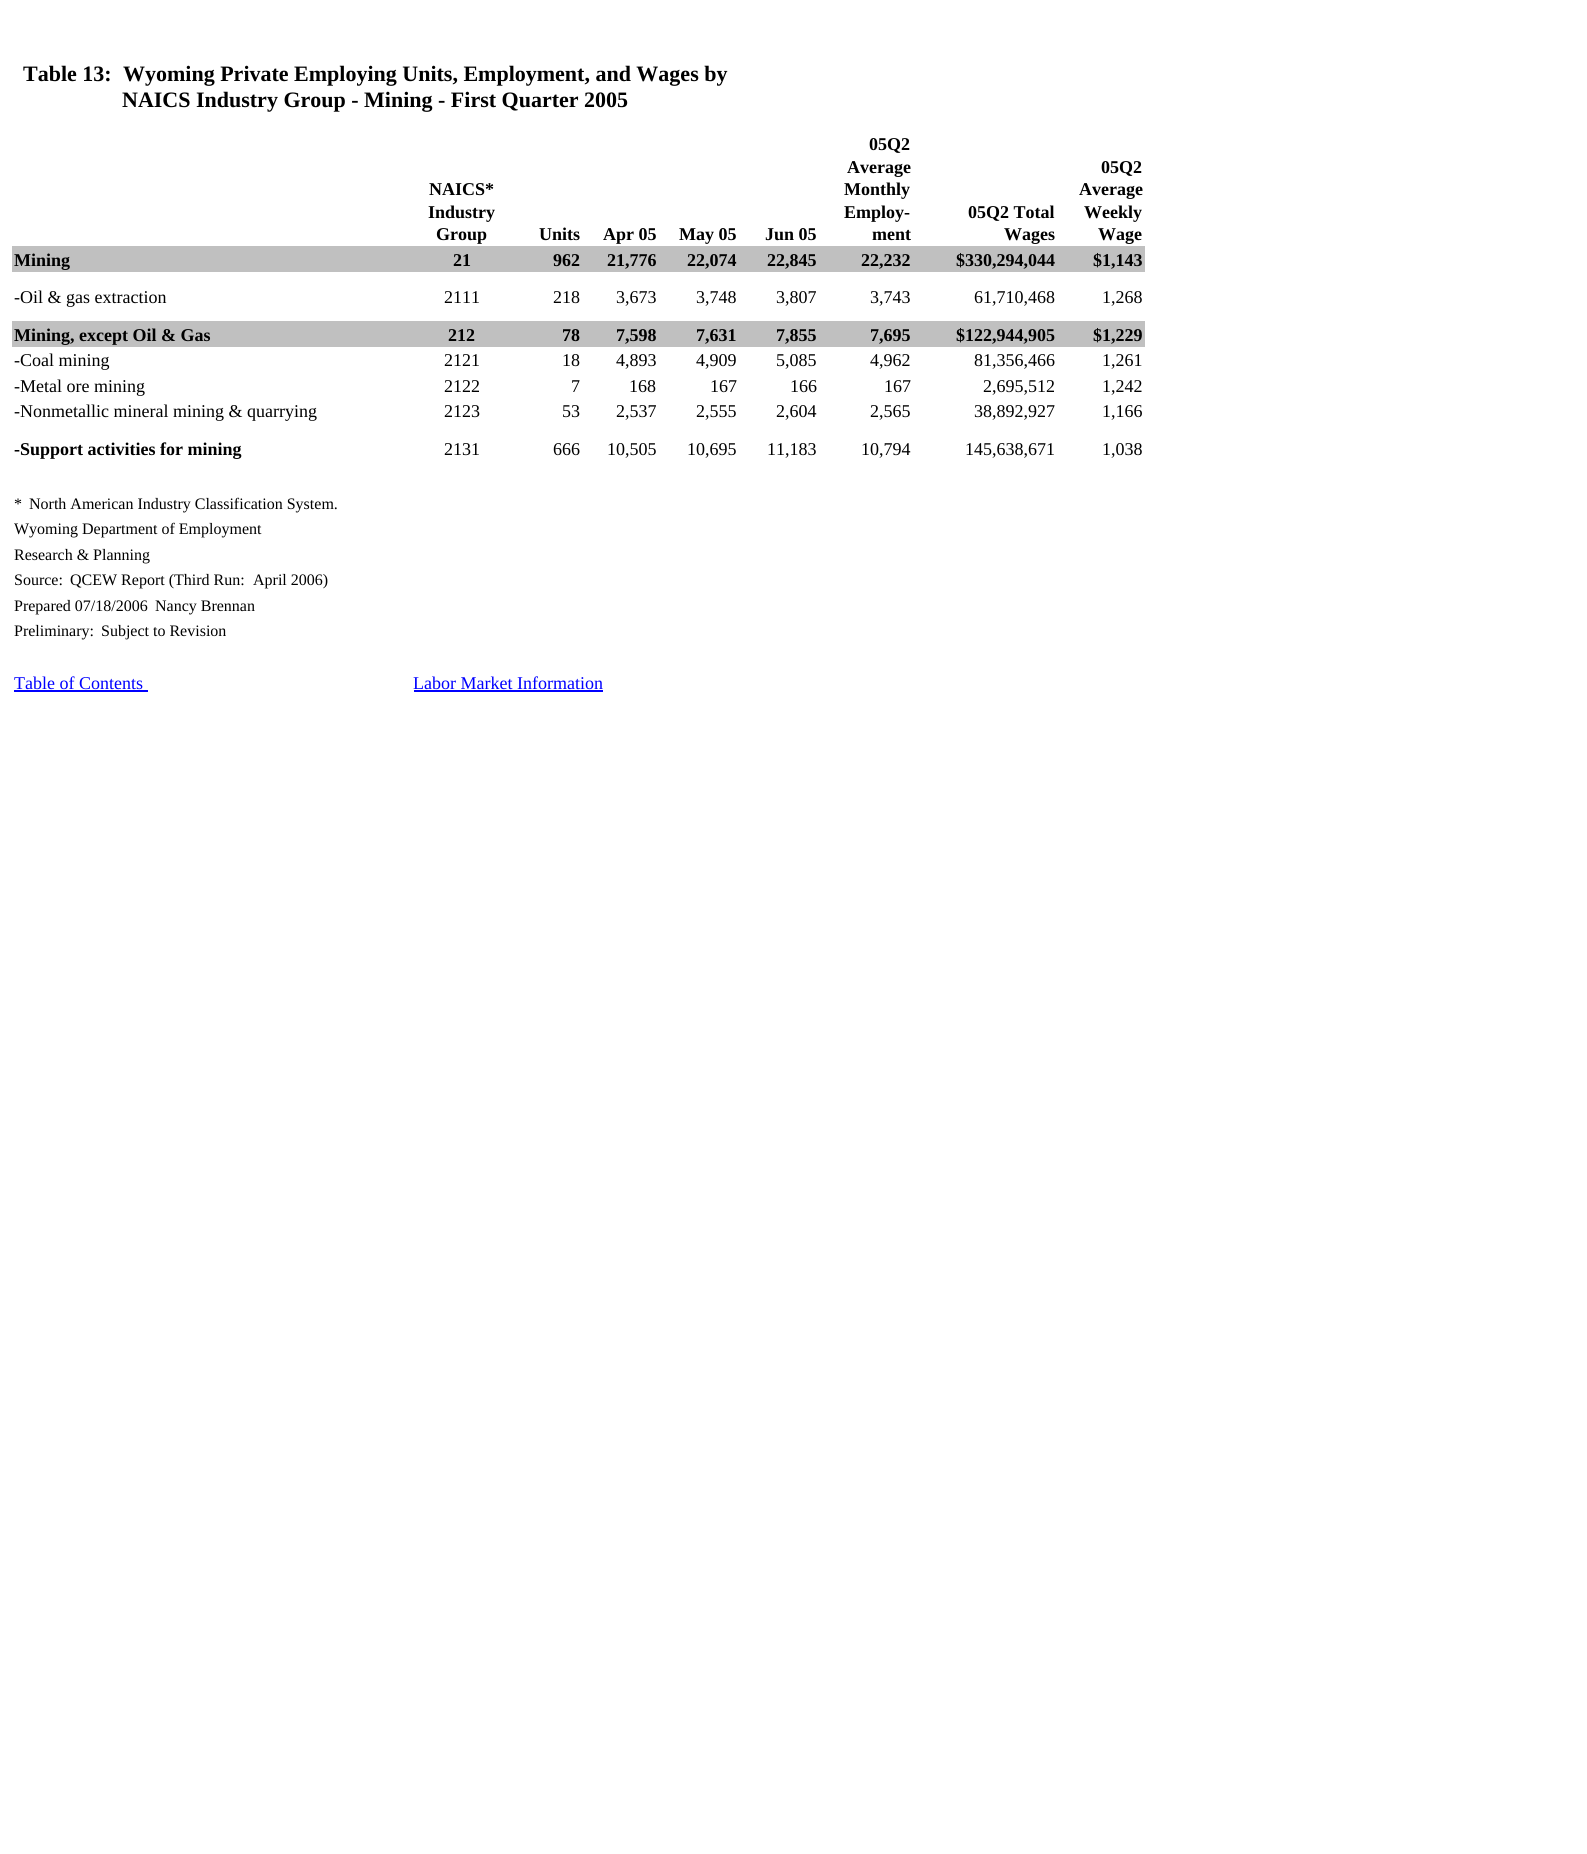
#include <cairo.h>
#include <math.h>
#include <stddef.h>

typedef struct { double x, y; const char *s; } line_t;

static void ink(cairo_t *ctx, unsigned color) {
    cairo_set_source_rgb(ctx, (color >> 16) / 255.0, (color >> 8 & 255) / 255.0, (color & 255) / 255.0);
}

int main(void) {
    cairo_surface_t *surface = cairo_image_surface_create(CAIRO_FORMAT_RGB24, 1587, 1854);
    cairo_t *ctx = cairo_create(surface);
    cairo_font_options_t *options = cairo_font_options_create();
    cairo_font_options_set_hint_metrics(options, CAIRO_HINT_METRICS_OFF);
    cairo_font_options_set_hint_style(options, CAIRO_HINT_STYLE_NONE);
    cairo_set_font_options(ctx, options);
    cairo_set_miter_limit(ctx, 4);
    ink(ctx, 0xFFFFFF);
    cairo_paint(ctx);
    cairo_select_font_face(ctx, "Liberation Serif", CAIRO_FONT_SLANT_NORMAL, CAIRO_FONT_WEIGHT_BOLD);
    cairo_set_font_size(ctx, 22);
    ink(ctx, 0x000000);
    {
        static const line_t items[] = {
            {23, 81, "Table 13:"},
            {123, 81, "Wyoming Private Employing Units, Employment, and Wages by"},
            {122, 107, "NAICS Industry Group - Mining - First Quarter 2005"},
        };
        for (size_t i = 0; i < sizeof items / sizeof *items; i++) {
            cairo_move_to(ctx, items[i].x, items[i].y);
            cairo_show_text(ctx, items[i].s);
        }
    }
    cairo_set_font_size(ctx, 18);
    {
        static const line_t items[] = {
            {429, 195, "NAICS*"},
            {428, 218, "Industry"},
            {436, 240, "Group"},
            {539, 240, "Units"},
            {603, 240, "Apr 05"},
            {679, 240, "May 05"},
            {765, 240, "Jun 05"},
            {869, 150, "05Q2"},
            {847, 173, "Average"},
            {844, 195, "Monthly"},
            {844, 218, "Employ-"},
            {872, 240, "ment"},
            {968, 218, "05Q2 Total"},
            {1004, 240, "Wages"},
            {1101, 173, "05Q2"},
            {1079, 195, "Average"},
            {1084, 218, "Weekly"},
            {1098, 240, "Wage"},
        };
        for (size_t i = 0; i < sizeof items / sizeof *items; i++) {
            cairo_move_to(ctx, items[i].x, items[i].y);
            cairo_show_text(ctx, items[i].s);
        }
    }
    ink(ctx, 0xC0C0C0);
    cairo_rectangle(ctx, 12, 246, 1133, 26);
    cairo_fill(ctx);
    ink(ctx, 0x000000);
    {
        static const line_t items[] = {
            {14, 266, "Mining"},
            {453, 266, "21"},
            {553, 266, "962"},
            {607, 266, "21,776"},
            {687, 266, "22,074"},
            {767, 266, "22,845"},
            {861, 266, "22,232"},
            {956, 266, "$330,294,044"},
            {1093, 266, "$1,143"},
        };
        for (size_t i = 0; i < sizeof items / sizeof *items; i++) {
            cairo_move_to(ctx, items[i].x, items[i].y);
            cairo_show_text(ctx, items[i].s);
        }
    }
    cairo_select_font_face(ctx, "Liberation Serif", CAIRO_FONT_SLANT_NORMAL, CAIRO_FONT_WEIGHT_NORMAL);
    {
        static const line_t items[] = {
            {14, 303, "-Oil & gas extraction"},
            {444, 303, "2111"},
            {553, 303, "218"},
            {616, 303, "3,673"},
            {696, 303, "3,748"},
            {776, 303, "3,807"},
            {870, 303, "3,743"},
            {974, 303, "61,710,468"},
            {1102, 303, "1,268"},
        };
        for (size_t i = 0; i < sizeof items / sizeof *items; i++) {
            cairo_move_to(ctx, items[i].x, items[i].y);
            cairo_show_text(ctx, items[i].s);
        }
    }
    ink(ctx, 0xC0C0C0);
    cairo_rectangle(ctx, 12, 321, 1133, 26);
    cairo_fill(ctx);
    cairo_select_font_face(ctx, "Liberation Serif", CAIRO_FONT_SLANT_NORMAL, CAIRO_FONT_WEIGHT_BOLD);
    ink(ctx, 0x000000);
    {
        static const line_t items[] = {
            {14, 341, "Mining, except Oil & Gas"},
            {448, 341, "212"},
            {562, 341, "78"},
            {616, 341, "7,598"},
            {696, 341, "7,631"},
            {776, 341, "7,855"},
            {870, 341, "7,695"},
            {956, 341, "$122,944,905"},
            {1093, 341, "$1,229"},
        };
        for (size_t i = 0; i < sizeof items / sizeof *items; i++) {
            cairo_move_to(ctx, items[i].x, items[i].y);
            cairo_show_text(ctx, items[i].s);
        }
    }
    cairo_select_font_face(ctx, "Liberation Serif", CAIRO_FONT_SLANT_NORMAL, CAIRO_FONT_WEIGHT_NORMAL);
    {
        static const line_t items[] = {
            {14, 366, "-Coal mining"},
            {444, 366, "2121"},
            {562, 366, "18"},
            {616, 366, "4,893"},
            {696, 366, "4,909"},
            {776, 366, "5,085"},
            {870, 366, "4,962"},
            {974, 366, "81,356,466"},
            {1102, 366, "1,261"},
            {14, 392, "-Metal ore mining"},
            {444, 392, "2122"},
            {571, 392, "7"},
            {629, 392, "168"},
            {710, 392, "167"},
            {790, 392, "166"},
            {884, 392, "167"},
            {983, 392, "2,695,512"},
            {1102, 392, "1,242"},
            {14, 417, "-Nonmetallic mineral mining & quarrying"},
            {444, 417, "2123"},
            {562, 417, "53"},
            {616, 417, "2,537"},
            {696, 417, "2,555"},
            {776, 417, "2,604"},
            {870, 417, "2,565"},
            {974, 417, "38,892,927"},
            {1102, 417, "1,166"},
        };
        for (size_t i = 0; i < sizeof items / sizeof *items; i++) {
            cairo_move_to(ctx, items[i].x, items[i].y);
            cairo_show_text(ctx, items[i].s);
        }
    }
    cairo_select_font_face(ctx, "Liberation Serif", CAIRO_FONT_SLANT_NORMAL, CAIRO_FONT_WEIGHT_BOLD);
    cairo_move_to(ctx, 14, 455);
    cairo_show_text(ctx, "-Support activities for mining");
    cairo_select_font_face(ctx, "Liberation Serif", CAIRO_FONT_SLANT_NORMAL, CAIRO_FONT_WEIGHT_NORMAL);
    {
        static const line_t items[] = {
            {444, 455, "2131"},
            {553, 455, "666"},
            {607, 455, "10,505"},
            {687, 455, "10,695"},
            {767, 455, "11,183"},
            {861, 455, "10,794"},
            {965, 455, "145,638,671"},
            {1102, 455, "1,038"},
        };
        for (size_t i = 0; i < sizeof items / sizeof *items; i++) {
            cairo_move_to(ctx, items[i].x, items[i].y);
            cairo_show_text(ctx, items[i].s);
        }
    }
    cairo_set_font_size(ctx, 16);
    {
        static const line_t items[] = {
            {14, 509, "*"},
            {29, 509, "North American Industry Classification System."},
            {14, 534, "Wyoming Department of Employment"},
            {14, 560, "Research & Planning"},
            {14, 585, "Source:"},
            {70, 585, "QCEW Report (Third Run:"},
            {253, 585, "April 2006)"},
            {14, 611, "Prepared 07/18/2006"},
            {155, 611, "Nancy Brennan"},
            {14, 636, "Preliminary:"},
            {101, 636, "Subject to Revision"},
        };
        for (size_t i = 0; i < sizeof items / sizeof *items; i++) {
            cairo_move_to(ctx, items[i].x, items[i].y);
            cairo_show_text(ctx, items[i].s);
        }
    }
    cairo_set_font_size(ctx, 18);
    ink(ctx, 0x0000FF);
    cairo_move_to(ctx, 14, 689);
    cairo_show_text(ctx, "Table of Contents");
    cairo_rectangle(ctx, 14, 690, 134, 2);
    cairo_fill(ctx);
    cairo_move_to(ctx, 413, 689);
    cairo_show_text(ctx, "Labor Market Information");
    cairo_rectangle(ctx, 414, 690, 189, 2);
    cairo_fill(ctx);
    cairo_surface_write_to_png(surface, "image.png");
    cairo_font_options_destroy(options);
    cairo_destroy(ctx);
    cairo_surface_destroy(surface);
    return 0;
}
